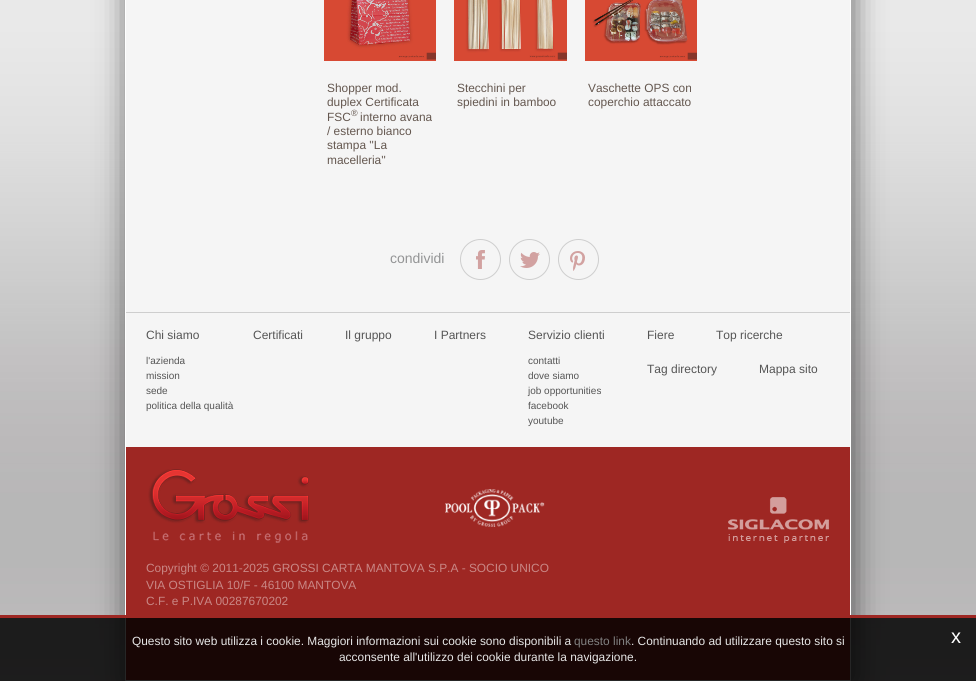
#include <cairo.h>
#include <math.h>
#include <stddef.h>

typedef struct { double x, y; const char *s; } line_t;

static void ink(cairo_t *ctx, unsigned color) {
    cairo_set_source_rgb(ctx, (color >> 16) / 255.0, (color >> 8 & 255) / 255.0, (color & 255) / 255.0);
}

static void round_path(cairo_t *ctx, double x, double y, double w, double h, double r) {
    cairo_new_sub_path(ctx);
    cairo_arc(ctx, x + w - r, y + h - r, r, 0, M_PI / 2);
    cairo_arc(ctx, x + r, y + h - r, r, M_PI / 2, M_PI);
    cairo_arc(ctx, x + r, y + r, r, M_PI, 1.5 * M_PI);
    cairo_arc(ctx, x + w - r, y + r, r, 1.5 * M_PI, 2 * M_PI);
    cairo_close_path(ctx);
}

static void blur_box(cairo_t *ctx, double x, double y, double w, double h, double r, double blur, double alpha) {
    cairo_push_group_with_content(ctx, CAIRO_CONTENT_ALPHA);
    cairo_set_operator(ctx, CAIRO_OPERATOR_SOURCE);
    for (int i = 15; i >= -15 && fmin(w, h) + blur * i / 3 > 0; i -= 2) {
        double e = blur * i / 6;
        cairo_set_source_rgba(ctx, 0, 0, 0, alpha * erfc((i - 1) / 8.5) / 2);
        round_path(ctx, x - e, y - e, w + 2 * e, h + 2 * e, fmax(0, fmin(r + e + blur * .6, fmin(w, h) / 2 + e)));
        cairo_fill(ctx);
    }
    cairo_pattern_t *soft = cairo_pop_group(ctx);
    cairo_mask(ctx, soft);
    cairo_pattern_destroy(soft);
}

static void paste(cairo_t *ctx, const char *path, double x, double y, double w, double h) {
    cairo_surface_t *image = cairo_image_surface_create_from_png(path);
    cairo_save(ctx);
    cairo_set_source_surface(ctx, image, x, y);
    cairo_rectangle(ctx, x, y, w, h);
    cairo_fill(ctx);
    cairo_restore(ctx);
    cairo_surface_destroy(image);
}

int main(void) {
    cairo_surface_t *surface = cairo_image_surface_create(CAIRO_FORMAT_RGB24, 976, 681);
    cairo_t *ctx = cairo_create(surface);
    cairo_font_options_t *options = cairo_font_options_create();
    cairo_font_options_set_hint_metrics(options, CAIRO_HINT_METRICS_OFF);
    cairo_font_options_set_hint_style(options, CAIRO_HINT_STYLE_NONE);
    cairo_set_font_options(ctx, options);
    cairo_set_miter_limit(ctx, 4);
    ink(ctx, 0xFFFFFF);
    cairo_paint(ctx);
    paste(ctx, "media/1.png", 0, 0, 976, 681);
    ink(ctx, 0x000000);
    blur_box(ctx, 127, -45, 726, 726, 0, 15, 0.54);
    ink(ctx, 0xFFFFFF);
    cairo_rectangle(ctx, 125, 0, 726, 681);
    cairo_fill(ctx);
    ink(ctx, 0xF5F5F5);
    cairo_rectangle(ctx, 126, 0, 724, 312);
    cairo_fill(ctx);
    paste(ctx, "media/2.png", 324, 0, 112, 61);
    cairo_select_font_face(ctx, "Liberation Sans", CAIRO_FONT_SLANT_NORMAL, CAIRO_FONT_WEIGHT_NORMAL);
    cairo_set_font_size(ctx, 11.9);
    ink(ctx, 0x64574F);
    {
        static const line_t items[] = {
            {327, 92, "Shopper mod."},
            {327, 106, "duplex Certificata"},
            {327, 121, "FSC"},
        };
        for (size_t i = 0; i < sizeof items / sizeof *items; i++) {
            cairo_move_to(ctx, items[i].x, items[i].y);
            cairo_show_text(ctx, items[i].s);
        }
    }
    cairo_set_font_size(ctx, 9);
    cairo_move_to(ctx, 351, 116);
    cairo_show_text(ctx, "®");
    cairo_set_font_size(ctx, 11.9);
    {
        static const line_t items[] = {
            {360, 121, "interno avana"},
            {327, 135, "/ esterno bianco"},
            {327, 149, "stampa ''La"},
            {327, 164, "macelleria''"},
        };
        for (size_t i = 0; i < sizeof items / sizeof *items; i++) {
            cairo_move_to(ctx, items[i].x, items[i].y);
            cairo_show_text(ctx, items[i].s);
        }
    }
    paste(ctx, "media/3.png", 454, 0, 113, 61);
    cairo_move_to(ctx, 457, 92);
    cairo_show_text(ctx, "Stecchini per");
    cairo_move_to(ctx, 457, 106);
    cairo_show_text(ctx, "spiedini in bamboo");
    paste(ctx, "media/4.png", 585, 0, 112, 61);
    cairo_move_to(ctx, 588, 92);
    cairo_show_text(ctx, "Vaschette OPS con");
    cairo_move_to(ctx, 588, 106);
    cairo_show_text(ctx, "coperchio attaccato");
    ink(ctx, 0xCECECE);
    cairo_rectangle(ctx, 126, 312, 724, 1);
    cairo_fill(ctx);
    cairo_set_font_size(ctx, 14);
    ink(ctx, 0x939495);
    cairo_move_to(ctx, 390, 263);
    cairo_show_text(ctx, "condividi");
    cairo_new_path(ctx);
    cairo_arc(ctx, 480.5, 259.5, 20, 0, 2 * M_PI);
    ink(ctx, 0xCECECE);
    cairo_set_line_width(ctx, 1);
    cairo_stroke(ctx);
    paste(ctx, "media/5.png", 476, 250, 9, 19);
    cairo_arc(ctx, 529.5, 259.5, 20, 0, 2 * M_PI);
    cairo_stroke(ctx);
    paste(ctx, "media/6.png", 520, 252, 20, 16);
    cairo_arc(ctx, 578.5, 259.5, 20, 0, 2 * M_PI);
    cairo_stroke(ctx);
    paste(ctx, "media/7.png", 570, 251, 15, 20);
    ink(ctx, 0xF5F5F5);
    cairo_rectangle(ctx, 126, 313, 724, 134);
    cairo_fill(ctx);
    cairo_set_font_size(ctx, 12);
    ink(ctx, 0x555555);
    cairo_move_to(ctx, 146, 339);
    cairo_show_text(ctx, "Chi siamo");
    cairo_set_font_size(ctx, 10);
    {
        static const line_t items[] = {
            {146, 364, "l'azienda"},
            {146, 379, "mission"},
            {146, 394, "sede"},
            {146, 409, "politica della qualità"},
        };
        for (size_t i = 0; i < sizeof items / sizeof *items; i++) {
            cairo_move_to(ctx, items[i].x, items[i].y);
            cairo_show_text(ctx, items[i].s);
        }
    }
    cairo_set_font_size(ctx, 12);
    {
        static const line_t items[] = {
            {253, 339, "Certificati"},
            {345, 339, "Il gruppo"},
            {434, 339, "I Partners"},
            {528, 339, "Servizio clienti"},
        };
        for (size_t i = 0; i < sizeof items / sizeof *items; i++) {
            cairo_move_to(ctx, items[i].x, items[i].y);
            cairo_show_text(ctx, items[i].s);
        }
    }
    cairo_set_font_size(ctx, 10);
    {
        static const line_t items[] = {
            {528, 364, "contatti"},
            {528, 379, "dove siamo"},
            {528, 394, "job opportunities"},
            {528, 409, "facebook"},
            {528, 424, "youtube"},
        };
        for (size_t i = 0; i < sizeof items / sizeof *items; i++) {
            cairo_move_to(ctx, items[i].x, items[i].y);
            cairo_show_text(ctx, items[i].s);
        }
    }
    cairo_set_font_size(ctx, 12);
    {
        static const line_t items[] = {
            {647, 339, "Fiere"},
            {716, 339, "Top ricerche"},
            {647, 373, "Tag directory"},
            {759, 373, "Mappa sito"},
        };
        for (size_t i = 0; i < sizeof items / sizeof *items; i++) {
            cairo_move_to(ctx, items[i].x, items[i].y);
            cairo_show_text(ctx, items[i].s);
        }
    }
    ink(ctx, 0x9E2723);
    cairo_rectangle(ctx, 126, 447, 724, 233);
    cairo_fill(ctx);
    paste(ctx, "media/8.png", 148, 469, 161, 74);
    paste(ctx, "media/9.png", 445, 489, 100, 38);
    paste(ctx, "media/10.png", 728, 497, 101, 46);
    cairo_set_font_size(ctx, 11.9);
    ink(ctx, 0xC98785);
    {
        static const line_t items[] = {
            {146, 572, "Copyright © 2011-2025 GROSSI CARTA MANTOVA S.P.A - SOCIO UNICO"},
            {146, 589, "VIA OSTIGLIA 10/F - 46100 MANTOVA"},
            {146, 605, "C.F. e P.IVA 00287670202"},
        };
        for (size_t i = 0; i < sizeof items / sizeof *items; i++) {
            cairo_move_to(ctx, items[i].x, items[i].y);
            cairo_show_text(ctx, items[i].s);
        }
    }
    cairo_set_source_rgba(ctx, 0, 0, 0, 0.85);
    cairo_rectangle(ctx, 0, 618, 976, 63);
    cairo_fill(ctx);
    ink(ctx, 0x9E2723);
    cairo_rectangle(ctx, 0, 615, 976, 3);
    cairo_fill(ctx);
    ink(ctx, 0xE6E6E6);
    cairo_move_to(ctx, 132, 645);
    cairo_show_text(ctx, "Questo sito web utilizza i cookie. Maggiori informazioni sui cookie sono disponibili a");
    ink(ctx, 0x818181);
    cairo_move_to(ctx, 574, 645);
    cairo_show_text(ctx, "questo link");
    ink(ctx, 0xE6E6E6);
    cairo_move_to(ctx, 631, 645);
    cairo_show_text(ctx, ". Continuando ad utilizzare questo sito si");
    cairo_set_font_size(ctx, 20);
    ink(ctx, 0xFFFFFF);
    cairo_move_to(ctx, 951, 643);
    cairo_show_text(ctx, "x");
    cairo_set_font_size(ctx, 11.9);
    ink(ctx, 0xE6E6E6);
    cairo_move_to(ctx, 339, 661);
    cairo_show_text(ctx, "acconsente all'utilizzo dei cookie durante la navigazione.");
    cairo_surface_write_to_png(surface, "image.png");
    cairo_font_options_destroy(options);
    cairo_destroy(ctx);
    cairo_surface_destroy(surface);
    return 0;
}
